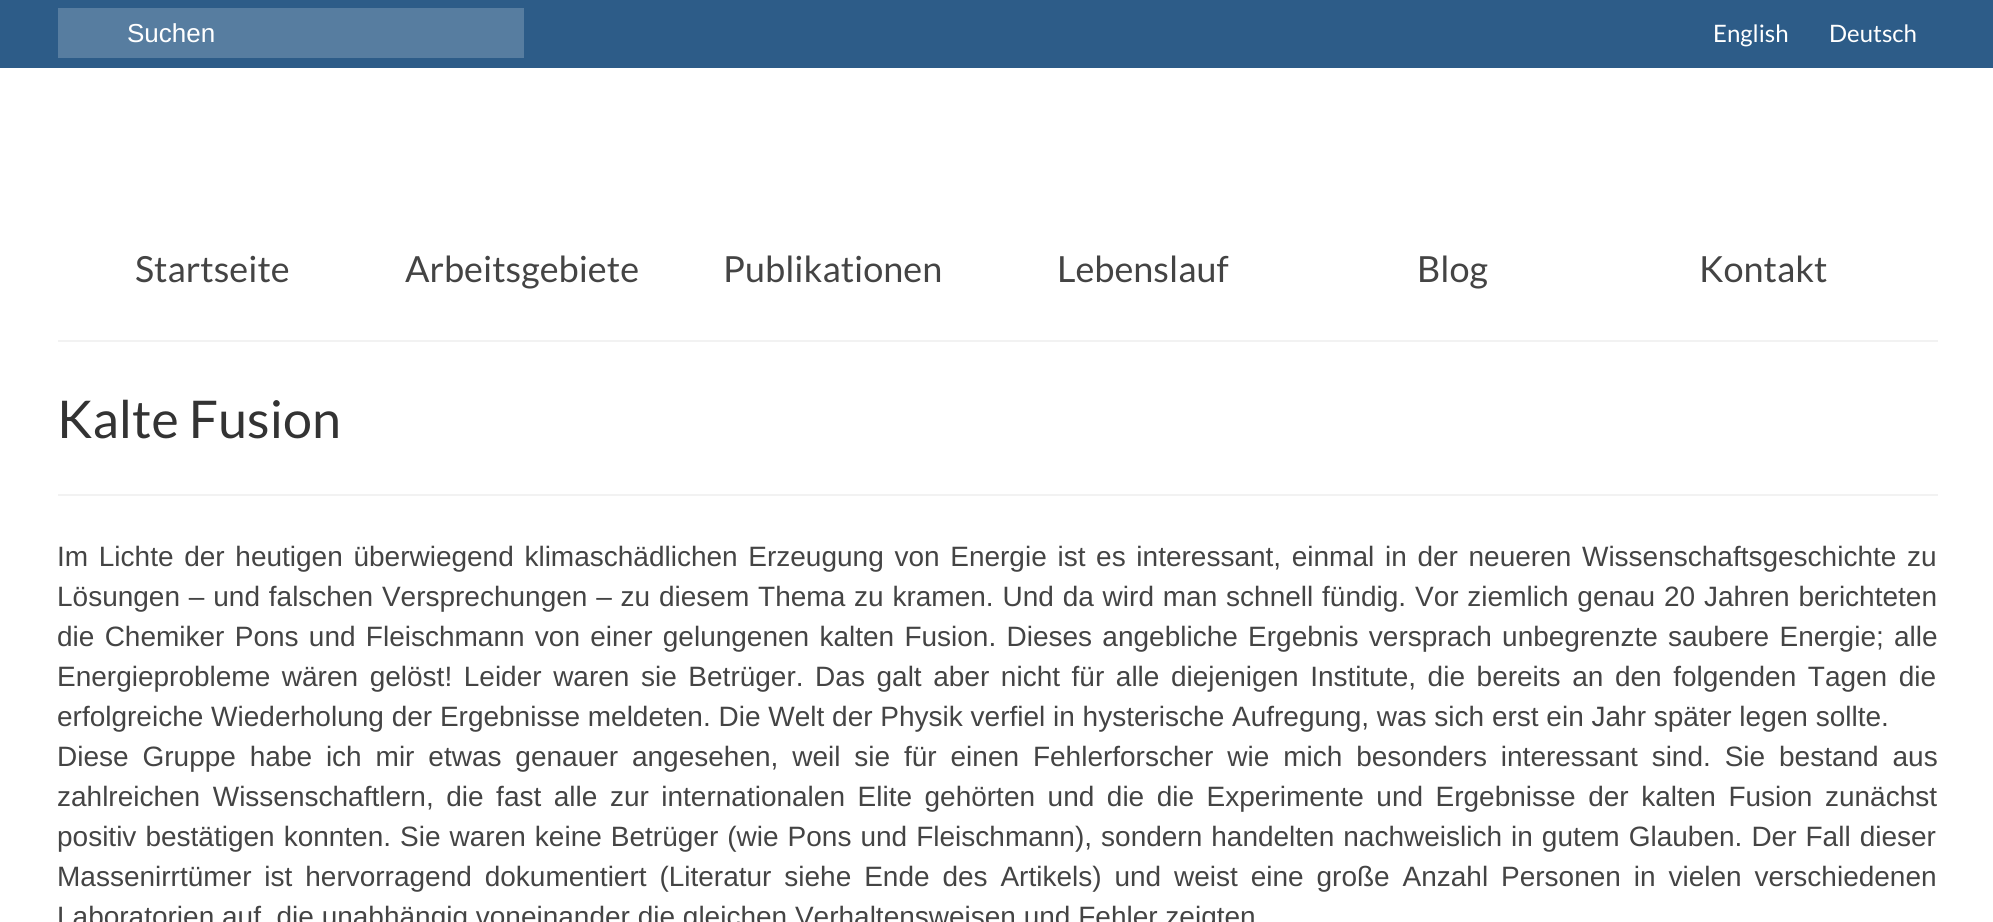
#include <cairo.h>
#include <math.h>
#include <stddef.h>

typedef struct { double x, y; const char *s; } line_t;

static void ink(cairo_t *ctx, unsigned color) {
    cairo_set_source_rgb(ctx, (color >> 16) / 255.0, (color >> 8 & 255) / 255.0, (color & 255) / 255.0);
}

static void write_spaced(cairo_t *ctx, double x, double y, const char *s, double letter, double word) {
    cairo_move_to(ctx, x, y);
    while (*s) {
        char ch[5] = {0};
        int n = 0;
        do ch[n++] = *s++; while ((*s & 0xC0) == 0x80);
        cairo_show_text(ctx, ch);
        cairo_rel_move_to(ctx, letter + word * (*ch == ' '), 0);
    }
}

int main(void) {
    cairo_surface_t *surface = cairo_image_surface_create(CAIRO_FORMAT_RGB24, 1993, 922);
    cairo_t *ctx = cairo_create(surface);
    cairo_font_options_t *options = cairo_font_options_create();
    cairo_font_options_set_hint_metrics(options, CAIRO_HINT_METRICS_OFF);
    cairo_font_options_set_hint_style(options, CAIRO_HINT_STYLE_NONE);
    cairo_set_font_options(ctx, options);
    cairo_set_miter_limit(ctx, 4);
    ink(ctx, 0xFFFFFF);
    cairo_paint(ctx);
    ink(ctx, 0x2D5C88);
    cairo_rectangle(ctx, 0, 0, 1993, 68);
    cairo_fill(ctx);
    ink(ctx, 0x577DA0);
    cairo_rectangle(ctx, 58, 8, 466, 50);
    cairo_fill(ctx);
    cairo_select_font_face(ctx, "Liberation Sans", CAIRO_FONT_SLANT_NORMAL, CAIRO_FONT_WEIGHT_NORMAL);
    cairo_set_font_size(ctx, 26);
    ink(ctx, 0xFFFFFF);
    cairo_move_to(ctx, 127, 42);
    cairo_show_text(ctx, "Suchen");
    cairo_select_font_face(ctx, "Lato", CAIRO_FONT_SLANT_NORMAL, CAIRO_FONT_WEIGHT_NORMAL);
    cairo_set_font_size(ctx, 24);
    cairo_move_to(ctx, 1713, 42);
    cairo_show_text(ctx, "English");
    cairo_move_to(ctx, 1829, 42);
    cairo_show_text(ctx, "Deutsch");
    cairo_set_font_size(ctx, 36);
    ink(ctx, 0x444444);
    {
        static const line_t items[] = {
            {135, 282, "Startseite"},
            {405, 282, "Arbeitsgebiete"},
            {723, 282, "Publikationen"},
            {1057, 282, "Lebenslauf"},
            {1417, 282, "Blog"},
            {1699, 282, "Kontakt"},
        };
        for (size_t i = 0; i < sizeof items / sizeof *items; i++) {
            cairo_move_to(ctx, items[i].x, items[i].y);
            cairo_show_text(ctx, items[i].s);
        }
    }
    ink(ctx, 0xF2F2F2);
    cairo_rectangle(ctx, 58, 340, 1880, 2);
    cairo_fill(ctx);
    cairo_rectangle(ctx, 58, 494, 1880, 2);
    cairo_fill(ctx);
    cairo_set_font_size(ctx, 52);
    ink(ctx, 0x333333);
    cairo_move_to(ctx, 57, 438);
    cairo_show_text(ctx, "Kalte Fusion");
    cairo_select_font_face(ctx, "Liberation Sans", CAIRO_FONT_SLANT_NORMAL, CAIRO_FONT_WEIGHT_NORMAL);
    cairo_set_font_size(ctx, 28);
    ink(ctx, 0x444444);
    write_spaced(ctx, 57, 566, "Im Lichte der heutigen überwiegend klimaschädlichen Erzeugung von Energie ist es interessant, einmal in der neueren Wissenschaftsgeschichte zu", 0, 2.9);
    write_spaced(ctx, 57, 606, "Lösungen – und falschen Versprechungen – zu diesem Thema zu kramen. Und da wird man schnell fündig. Vor ziemlich genau 20 Jahren berichteten", 0, 1.05);
    write_spaced(ctx, 57, 646, "die Chemiker Pons und Fleischmann von einer gelungenen kalten Fusion. Dieses angebliche Ergebnis versprach unbegrenzte saubere Energie; alle", 0, 2.5);
    write_spaced(ctx, 57, 686, "Energieprobleme wären gelöst! Leider waren sie Betrüger. Das galt aber nicht für alle diejenigen Institute, die bereits an den folgenden Tagen die", 0, 3.8);
    cairo_move_to(ctx, 57, 726);
    cairo_show_text(ctx, "erfolgreiche Wiederholung der Ergebnisse meldeten. Die Welt der Physik verfiel in hysterische Aufregung, was sich erst ein Jahr später legen sollte.");
    write_spaced(ctx, 57, 766, "Diese Gruppe habe ich mir etwas genauer angesehen, weil sie für einen Fehlerforscher wie mich besonders interessant sind. Sie bestand aus", 0, 6.1);
    write_spaced(ctx, 57, 806, "zahlreichen Wissenschaftlern, die fast alle zur internationalen Elite gehörten und die die Experimente und Ergebnisse der kalten Fusion zunächst", 0, 4.75);
    write_spaced(ctx, 57, 846, "positiv bestätigen konnten. Sie waren keine Betrüger (wie Pons und Fleischmann), sondern handelten nachweislich in gutem Glauben. Der Fall dieser", 0, 1.25);
    write_spaced(ctx, 57, 886, "Massenirrtümer ist hervorragend dokumentiert (Literatur siehe Ende des Artikels) und weist eine große Anzahl Personen in vielen verschiedenen", 0, 5.1);
    cairo_move_to(ctx, 57, 926);
    cairo_show_text(ctx, "Laboratorien auf, die unabhängig voneinander die gleichen Verhaltensweisen und Fehler zeigten");
    cairo_surface_write_to_png(surface, "image.png");
    cairo_font_options_destroy(options);
    cairo_destroy(ctx);
    cairo_surface_destroy(surface);
    return 0;
}
